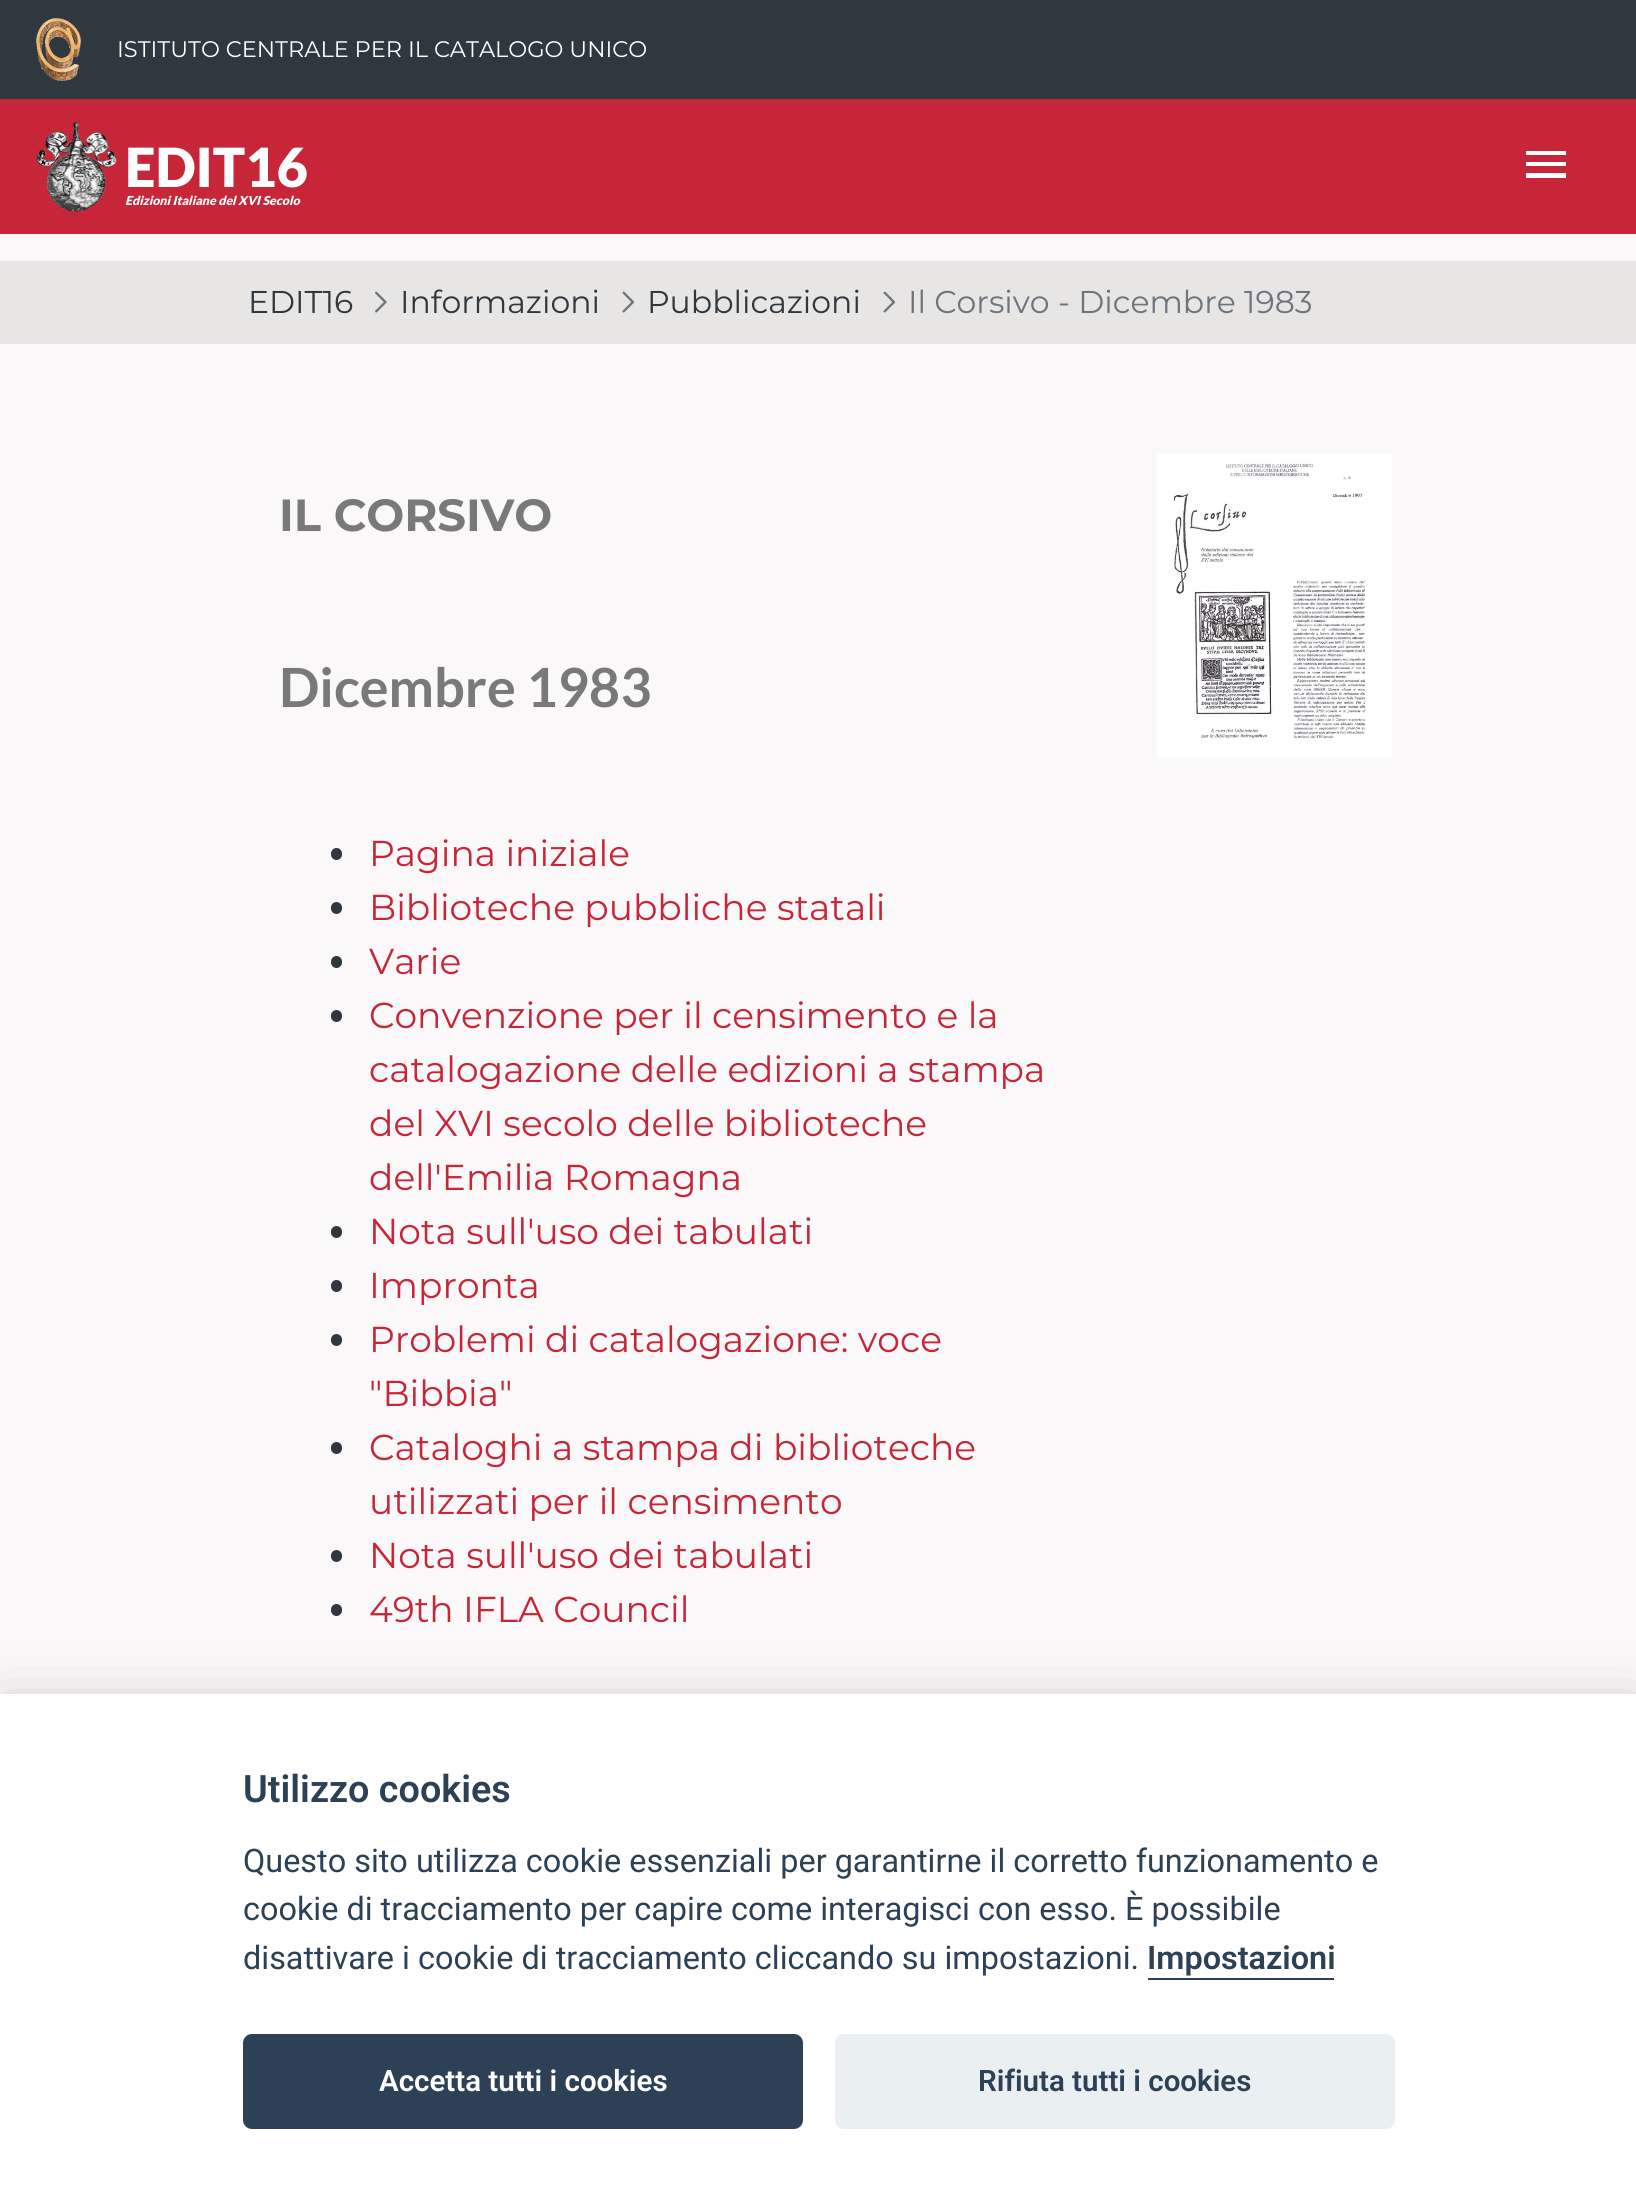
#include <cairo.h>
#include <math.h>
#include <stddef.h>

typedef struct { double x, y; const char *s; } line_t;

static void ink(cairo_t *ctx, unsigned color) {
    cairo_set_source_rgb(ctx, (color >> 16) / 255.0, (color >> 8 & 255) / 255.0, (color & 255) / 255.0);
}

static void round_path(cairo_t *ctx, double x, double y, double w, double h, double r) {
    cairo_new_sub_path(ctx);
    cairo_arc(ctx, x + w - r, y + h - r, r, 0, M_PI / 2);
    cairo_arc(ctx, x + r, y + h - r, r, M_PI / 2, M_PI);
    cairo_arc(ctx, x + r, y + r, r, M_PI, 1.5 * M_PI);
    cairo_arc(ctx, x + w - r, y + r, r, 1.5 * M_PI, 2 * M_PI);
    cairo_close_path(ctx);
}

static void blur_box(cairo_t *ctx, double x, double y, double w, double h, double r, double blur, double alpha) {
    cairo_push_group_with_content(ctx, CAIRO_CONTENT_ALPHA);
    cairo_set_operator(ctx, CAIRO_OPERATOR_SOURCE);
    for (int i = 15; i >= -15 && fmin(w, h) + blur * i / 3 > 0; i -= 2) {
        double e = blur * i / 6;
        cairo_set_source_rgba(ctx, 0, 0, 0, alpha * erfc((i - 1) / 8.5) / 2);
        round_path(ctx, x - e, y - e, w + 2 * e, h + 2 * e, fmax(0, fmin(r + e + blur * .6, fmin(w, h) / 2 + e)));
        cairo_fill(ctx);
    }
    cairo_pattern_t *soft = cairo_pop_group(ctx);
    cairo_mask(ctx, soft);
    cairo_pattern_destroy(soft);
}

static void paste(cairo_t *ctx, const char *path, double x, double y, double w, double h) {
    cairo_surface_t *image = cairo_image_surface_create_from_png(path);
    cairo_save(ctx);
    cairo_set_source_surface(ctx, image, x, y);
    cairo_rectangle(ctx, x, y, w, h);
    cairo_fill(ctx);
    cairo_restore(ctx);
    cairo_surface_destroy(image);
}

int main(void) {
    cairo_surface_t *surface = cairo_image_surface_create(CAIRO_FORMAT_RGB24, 1636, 2200);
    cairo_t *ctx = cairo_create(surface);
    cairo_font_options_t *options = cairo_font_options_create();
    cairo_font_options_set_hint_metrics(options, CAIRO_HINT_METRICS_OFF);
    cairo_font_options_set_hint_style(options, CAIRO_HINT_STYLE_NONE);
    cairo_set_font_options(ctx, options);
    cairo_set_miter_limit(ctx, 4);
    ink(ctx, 0xFAF8F8);
    cairo_paint(ctx);
    ink(ctx, 0x30383F);
    cairo_rectangle(ctx, 0, 0, 1636, 99);
    cairo_fill(ctx);
    paste(ctx, "media/1.png", 36, 18, 45, 63);
    cairo_select_font_face(ctx, "Montserrat", CAIRO_FONT_SLANT_NORMAL, CAIRO_FONT_WEIGHT_NORMAL);
    cairo_set_font_size(ctx, 22.5);
    ink(ctx, 0xFFFFFF);
    cairo_move_to(ctx, 117, 57);
    cairo_show_text(ctx, "ISTITUTO CENTRALE PER IL CATALOGO UNICO");
    ink(ctx, 0xC72639);
    cairo_rectangle(ctx, 0, 99, 1636, 135);
    cairo_fill(ctx);
    paste(ctx, "media/2.png", 36, 122, 81, 90);
    cairo_select_font_face(ctx, "Lato Black", CAIRO_FONT_SLANT_NORMAL, CAIRO_FONT_WEIGHT_NORMAL);
    cairo_set_font_size(ctx, 54);
    ink(ctx, 0xFFFFFF);
    cairo_move_to(ctx, 125, 187);
    cairo_show_text(ctx, "EDIT16");
    cairo_select_font_face(ctx, "Lato Black", CAIRO_FONT_SLANT_ITALIC, CAIRO_FONT_WEIGHT_NORMAL);
    cairo_set_font_size(ctx, 12.4);
    cairo_move_to(ctx, 125, 205);
    cairo_show_text(ctx, "Edizioni Italiane del XVI Secolo");
    cairo_new_path(ctx);
    cairo_move_to(ctx, 1526, 151);
    cairo_line_to(ctx, 1566, 151);
    cairo_line_to(ctx, 1566, 155);
    cairo_line_to(ctx, 1526, 155);
    cairo_close_path(ctx);
    cairo_move_to(ctx, 1526, 166);
    cairo_line_to(ctx, 1526, 162);
    cairo_line_to(ctx, 1566, 162);
    cairo_line_to(ctx, 1566, 166);
    cairo_close_path(ctx);
    cairo_move_to(ctx, 1526, 178);
    cairo_line_to(ctx, 1526, 173);
    cairo_line_to(ctx, 1566, 173);
    cairo_line_to(ctx, 1566, 178);
    cairo_close_path(ctx);
    cairo_fill(ctx);
    ink(ctx, 0xE8E6E5);
    cairo_rectangle(ctx, 0, 261, 1636, 83);
    cairo_fill(ctx);
    cairo_select_font_face(ctx, "Montserrat", CAIRO_FONT_SLANT_NORMAL, CAIRO_FONT_WEIGHT_NORMAL);
    cairo_set_font_size(ctx, 31.5);
    ink(ctx, 0x30383F);
    cairo_move_to(ctx, 248, 313);
    cairo_show_text(ctx, "EDIT16");
    paste(ctx, "media/3.png", 375, 291, 12, 22);
    cairo_move_to(ctx, 400, 313);
    cairo_show_text(ctx, "Informazioni");
    paste(ctx, "media/4.png", 622, 291, 13, 22);
    cairo_move_to(ctx, 647, 313);
    cairo_show_text(ctx, "Pubblicazioni");
    paste(ctx, "media/4.png", 883, 291, 13, 22);
    ink(ctx, 0x6C757D);
    cairo_move_to(ctx, 908, 313);
    cairo_show_text(ctx, "Il Corsivo - Dicembre 1983");
    cairo_select_font_face(ctx, "Montserrat", CAIRO_FONT_SLANT_NORMAL, CAIRO_FONT_WEIGHT_BOLD);
    cairo_set_font_size(ctx, 45);
    ink(ctx, 0x797977);
    cairo_move_to(ctx, 279, 531);
    cairo_show_text(ctx, "IL CORSIVO");
    cairo_select_font_face(ctx, "Lato", CAIRO_FONT_SLANT_NORMAL, CAIRO_FONT_WEIGHT_BOLD);
    cairo_set_font_size(ctx, 54);
    cairo_move_to(ctx, 279, 707);
    cairo_show_text(ctx, "Dicembre 1983");
    ink(ctx, 0x30383F);
    round_path(ctx, 331, 848, 11, 12, 5.5);
    cairo_fill(ctx);
    cairo_select_font_face(ctx, "Montserrat", CAIRO_FONT_SLANT_NORMAL, CAIRO_FONT_WEIGHT_NORMAL);
    cairo_set_font_size(ctx, 36);
    ink(ctx, 0xC72639);
    cairo_move_to(ctx, 369, 866);
    cairo_show_text(ctx, "Pagina iniziale");
    ink(ctx, 0x30383F);
    round_path(ctx, 331, 902, 11, 12, 5.5);
    cairo_fill(ctx);
    ink(ctx, 0xC72639);
    cairo_move_to(ctx, 369, 920);
    cairo_show_text(ctx, "Biblioteche pubbliche statali");
    ink(ctx, 0x30383F);
    round_path(ctx, 331, 956, 11, 12, 5.5);
    cairo_fill(ctx);
    ink(ctx, 0xC72639);
    cairo_move_to(ctx, 369, 974);
    cairo_show_text(ctx, "Varie");
    ink(ctx, 0x30383F);
    round_path(ctx, 331, 1010, 11, 12, 5.5);
    cairo_fill(ctx);
    ink(ctx, 0xC72639);
    {
        static const line_t items[] = {
            {369, 1028, "Convenzione per il censimento e la"},
            {369, 1082, "catalogazione delle edizioni a stampa"},
            {369, 1136, "del XVI secolo delle biblioteche"},
            {369, 1190, "dell'Emilia Romagna"},
        };
        for (size_t i = 0; i < sizeof items / sizeof *items; i++) {
            cairo_move_to(ctx, items[i].x, items[i].y);
            cairo_show_text(ctx, items[i].s);
        }
    }
    ink(ctx, 0x30383F);
    round_path(ctx, 331, 1226, 11, 12, 5.5);
    cairo_fill(ctx);
    ink(ctx, 0xC72639);
    cairo_move_to(ctx, 369, 1244);
    cairo_show_text(ctx, "Nota sull'uso dei tabulati");
    ink(ctx, 0x30383F);
    round_path(ctx, 331, 1280, 11, 12, 5.5);
    cairo_fill(ctx);
    ink(ctx, 0xC72639);
    cairo_move_to(ctx, 369, 1298);
    cairo_show_text(ctx, "Impronta");
    ink(ctx, 0x30383F);
    round_path(ctx, 331, 1334, 11, 12, 5.5);
    cairo_fill(ctx);
    ink(ctx, 0xC72639);
    cairo_move_to(ctx, 369, 1352);
    cairo_show_text(ctx, "Problemi di catalogazione: voce");
    cairo_move_to(ctx, 369, 1406);
    cairo_show_text(ctx, "\"Bibbia\"");
    ink(ctx, 0x30383F);
    round_path(ctx, 331, 1442, 11, 12, 5.5);
    cairo_fill(ctx);
    ink(ctx, 0xC72639);
    cairo_move_to(ctx, 369, 1460);
    cairo_show_text(ctx, "Cataloghi a stampa di biblioteche");
    cairo_move_to(ctx, 369, 1514);
    cairo_show_text(ctx, "utilizzati per il censimento");
    ink(ctx, 0x30383F);
    round_path(ctx, 331, 1550, 11, 12, 5.5);
    cairo_fill(ctx);
    ink(ctx, 0xC72639);
    cairo_move_to(ctx, 369, 1568);
    cairo_show_text(ctx, "Nota sull'uso dei tabulati");
    ink(ctx, 0x30383F);
    round_path(ctx, 331, 1604, 11, 12, 5.5);
    cairo_fill(ctx);
    ink(ctx, 0xC72639);
    cairo_move_to(ctx, 369, 1622);
    cairo_show_text(ctx, "49th IFLA Council");
    paste(ctx, "media/5.png", 1157, 453, 235, 305);
    ink(ctx, 0x020203);
    blur_box(ctx, 0, 1717, 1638, 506, 0, 34, 0.28);
    ink(ctx, 0xFFFFFF);
    cairo_rectangle(ctx, 0, 1694, 1636, 506);
    cairo_fill(ctx);
    cairo_select_font_face(ctx, "Roboto SemiBold", CAIRO_FONT_SLANT_NORMAL, CAIRO_FONT_WEIGHT_NORMAL);
    cairo_set_font_size(ctx, 37.75);
    ink(ctx, 0x2D4156);
    cairo_move_to(ctx, 243, 1802);
    cairo_show_text(ctx, "Utilizzo cookies");
    cairo_select_font_face(ctx, "Roboto", CAIRO_FONT_SLANT_NORMAL, CAIRO_FONT_WEIGHT_NORMAL);
    cairo_set_font_size(ctx, 32.4);
    {
        static const line_t items[] = {
            {243, 1872, "Questo sito utilizza cookie essenziali per garantirne il corretto funzionamento e"},
            {243, 1920, "cookie di tracciamento per capire come interagisci con esso. È possibile"},
            {243, 1969, "disattivare i cookie di tracciamento cliccando su impostazioni."},
        };
        for (size_t i = 0; i < sizeof items / sizeof *items; i++) {
            cairo_move_to(ctx, items[i].x, items[i].y);
            cairo_show_text(ctx, items[i].s);
        }
    }
    cairo_select_font_face(ctx, "Roboto SemiBold", CAIRO_FONT_SLANT_NORMAL, CAIRO_FONT_WEIGHT_NORMAL);
    cairo_move_to(ctx, 1147, 1969);
    cairo_show_text(ctx, "Impostazioni");
    cairo_rectangle(ctx, 1148, 1978, 186, 2);
    cairo_fill(ctx);
    round_path(ctx, 243, 2034, 560, 95, 9);
    cairo_fill(ctx);
    cairo_set_font_size(ctx, 29.5);
    ink(ctx, 0xFFFFFF);
    cairo_move_to(ctx, 379, 2091);
    cairo_show_text(ctx, "Accetta tutti i cookies");
    ink(ctx, 0xEAEFF2);
    round_path(ctx, 835, 2034, 560, 95, 9);
    cairo_fill(ctx);
    ink(ctx, 0x2D4156);
    cairo_move_to(ctx, 978, 2091);
    cairo_show_text(ctx, "Rifiuta tutti i cookies");
    cairo_surface_write_to_png(surface, "image.png");
    cairo_font_options_destroy(options);
    cairo_destroy(ctx);
    cairo_surface_destroy(surface);
    return 0;
}
